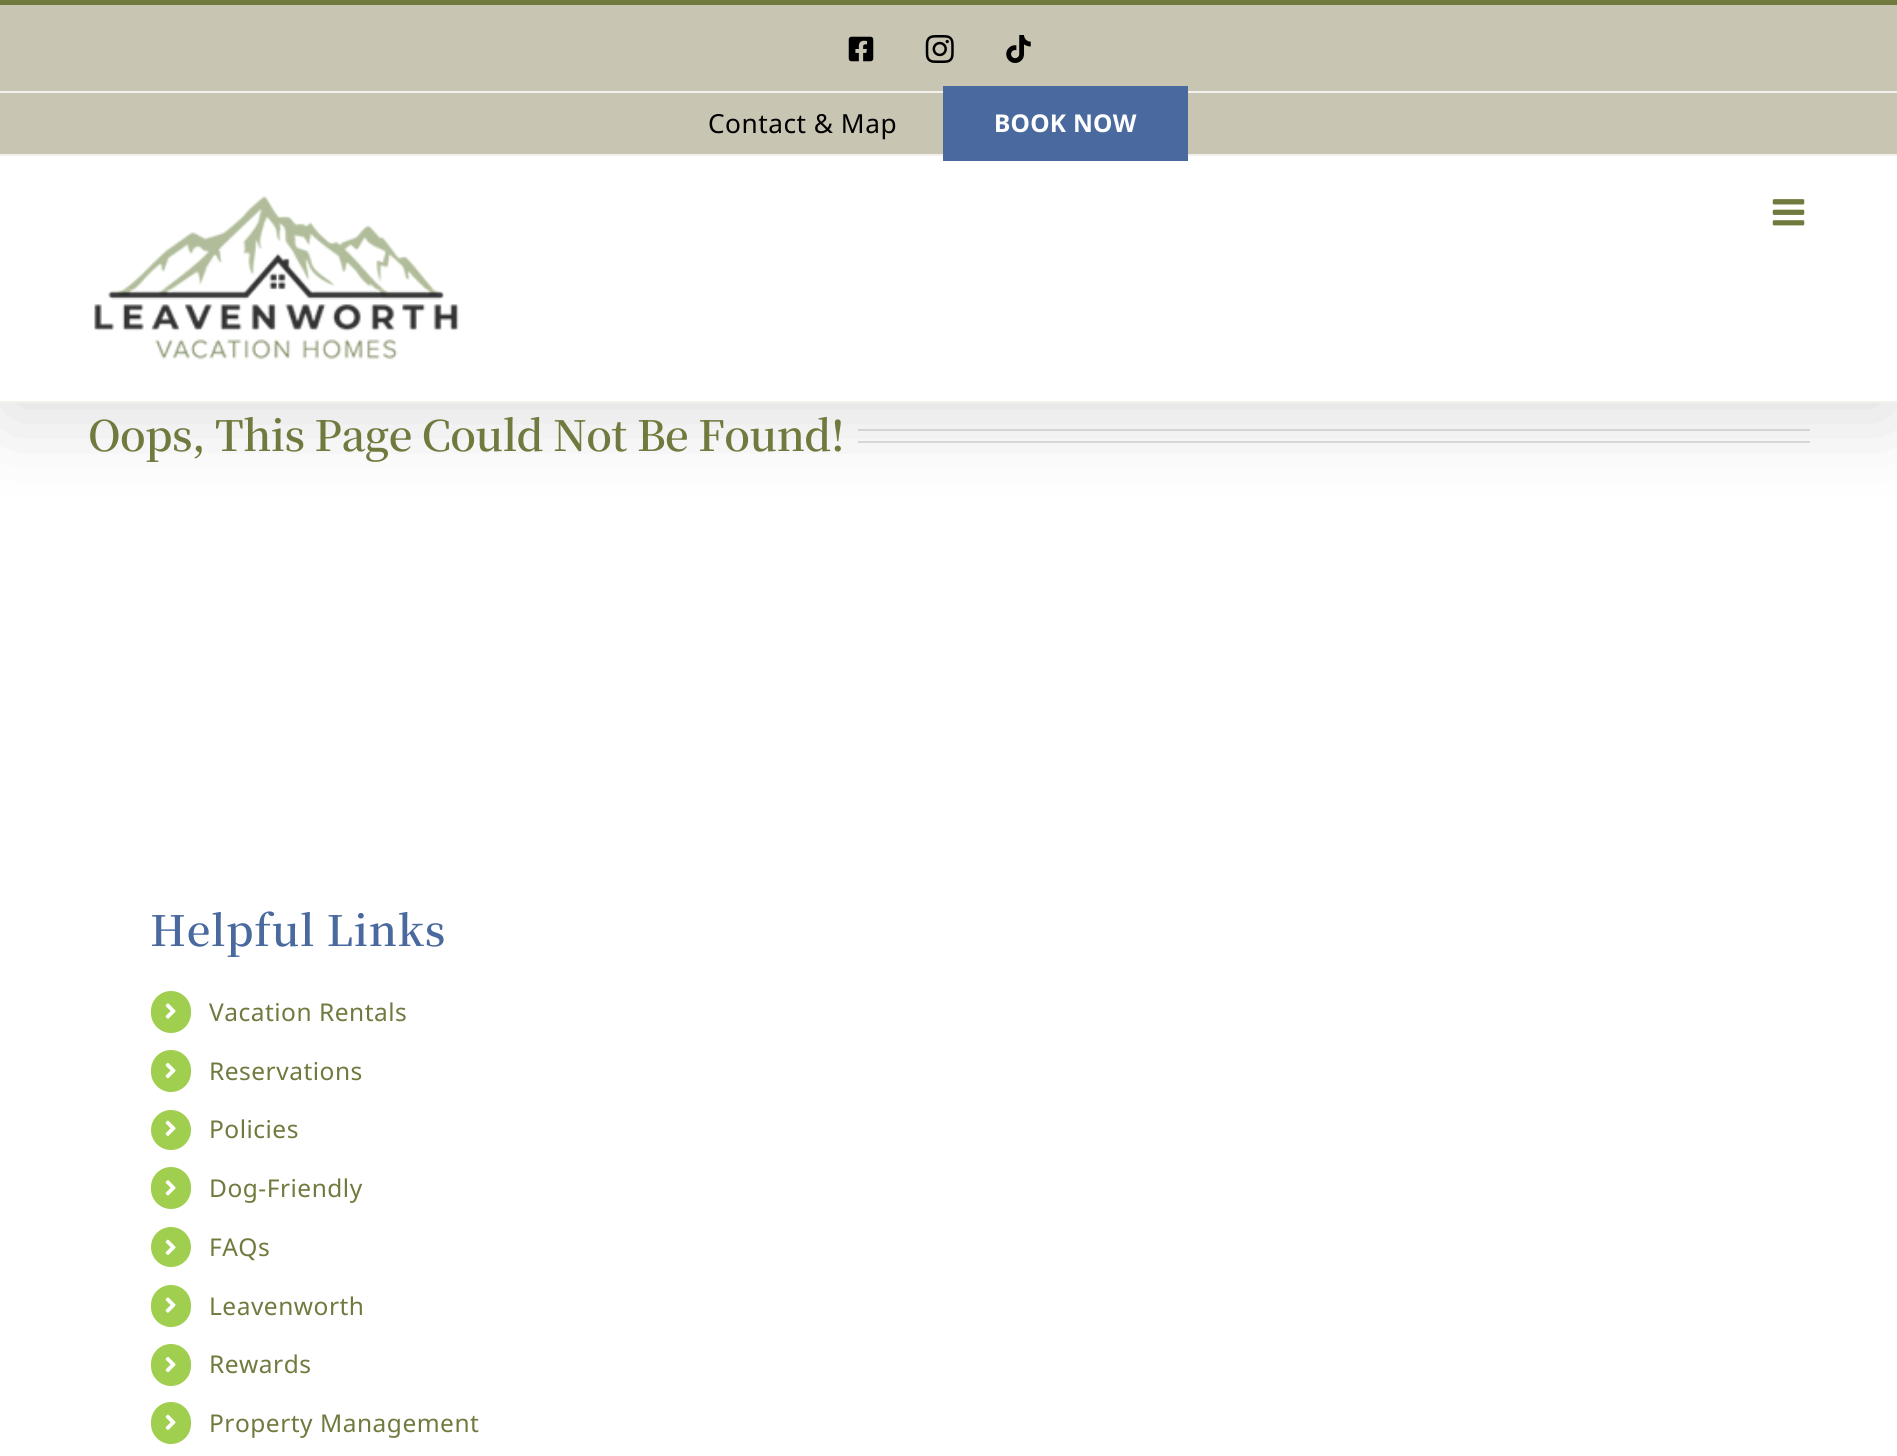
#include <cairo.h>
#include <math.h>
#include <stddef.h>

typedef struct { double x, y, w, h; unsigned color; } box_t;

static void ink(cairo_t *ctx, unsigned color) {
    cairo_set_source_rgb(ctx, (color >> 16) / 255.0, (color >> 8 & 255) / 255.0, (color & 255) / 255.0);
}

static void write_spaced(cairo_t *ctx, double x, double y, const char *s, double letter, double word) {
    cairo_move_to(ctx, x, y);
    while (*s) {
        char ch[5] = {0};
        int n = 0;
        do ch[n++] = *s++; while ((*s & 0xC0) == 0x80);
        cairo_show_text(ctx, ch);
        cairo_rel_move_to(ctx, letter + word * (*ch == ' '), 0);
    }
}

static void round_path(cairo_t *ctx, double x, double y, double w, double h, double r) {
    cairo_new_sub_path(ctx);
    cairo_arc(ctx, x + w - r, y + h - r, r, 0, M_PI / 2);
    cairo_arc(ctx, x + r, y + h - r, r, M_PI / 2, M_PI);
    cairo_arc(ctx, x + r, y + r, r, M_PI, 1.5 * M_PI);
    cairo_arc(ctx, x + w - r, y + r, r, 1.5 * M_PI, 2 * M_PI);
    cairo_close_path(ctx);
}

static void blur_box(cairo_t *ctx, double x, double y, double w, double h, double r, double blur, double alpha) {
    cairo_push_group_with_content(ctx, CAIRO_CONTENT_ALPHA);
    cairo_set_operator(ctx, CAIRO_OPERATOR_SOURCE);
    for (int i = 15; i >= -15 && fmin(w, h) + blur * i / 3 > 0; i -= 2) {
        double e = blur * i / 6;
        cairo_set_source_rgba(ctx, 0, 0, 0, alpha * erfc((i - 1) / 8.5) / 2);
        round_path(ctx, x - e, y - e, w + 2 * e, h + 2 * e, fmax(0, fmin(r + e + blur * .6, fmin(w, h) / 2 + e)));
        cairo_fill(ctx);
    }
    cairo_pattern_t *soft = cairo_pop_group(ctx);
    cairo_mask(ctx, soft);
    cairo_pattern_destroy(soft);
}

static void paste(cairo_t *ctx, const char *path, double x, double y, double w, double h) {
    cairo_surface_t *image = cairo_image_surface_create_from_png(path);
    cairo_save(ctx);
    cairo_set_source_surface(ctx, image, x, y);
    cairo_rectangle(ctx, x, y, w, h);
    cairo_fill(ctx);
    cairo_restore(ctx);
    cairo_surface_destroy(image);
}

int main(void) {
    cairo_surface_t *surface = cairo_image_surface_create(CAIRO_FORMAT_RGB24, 1897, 1456);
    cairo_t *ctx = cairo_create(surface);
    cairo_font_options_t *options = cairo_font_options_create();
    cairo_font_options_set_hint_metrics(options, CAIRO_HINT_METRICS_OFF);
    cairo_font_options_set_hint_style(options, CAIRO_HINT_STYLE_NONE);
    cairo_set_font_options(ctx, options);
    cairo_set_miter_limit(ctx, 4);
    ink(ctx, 0xFFFFFF);
    cairo_paint(ctx);
    ink(ctx, 0xE0DEDE);
    cairo_rectangle(ctx, 858, 429, 952, 2);
    cairo_fill(ctx);
    cairo_rectangle(ctx, 858, 441, 952, 2);
    cairo_fill(ctx);
    ink(ctx, 0x000000);
    blur_box(ctx, 4, 21, 1890, 396, 0, 44, 0.14);
    {
        static const box_t items[] = {
            {0, 5, 1897, 149, 0xC8C5B2},
            {0, 0, 1897, 5, 0x707A3E},
            {0, 154, 1897, 2, 0xF4F1EC},
            {0, 91, 1897, 2, 0xF4F1EC},
        };
        for (size_t i = 0; i < sizeof items / sizeof *items; i++) {
            ink(ctx, items[i].color);
            cairo_rectangle(ctx, items[i].x, items[i].y, items[i].w, items[i].h);
            cairo_fill(ctx);
        }
    }
    paste(ctx, "media/1.png", 848, 36, 26, 26);
    paste(ctx, "media/2.png", 925, 35, 29, 28);
    paste(ctx, "media/3.png", 1006, 35, 25, 28);
    cairo_select_font_face(ctx, "Noto Sans", CAIRO_FONT_SLANT_NORMAL, CAIRO_FONT_WEIGHT_NORMAL);
    cairo_set_font_size(ctx, 26.25);
    ink(ctx, 0x000000);
    write_spaced(ctx, 708, 133, "Contact & Map", 0.5, 0);
    ink(ctx, 0xFFFFFF);
    cairo_rectangle(ctx, 0, 156, 1897, 245);
    cairo_fill(ctx);
    ink(ctx, 0x4A699E);
    cairo_rectangle(ctx, 943, 86, 245, 75);
    cairo_fill(ctx);
    cairo_select_font_face(ctx, "Noto Sans", CAIRO_FONT_SLANT_NORMAL, CAIRO_FONT_WEIGHT_BOLD);
    cairo_set_font_size(ctx, 24.5);
    ink(ctx, 0xFFFFFF);
    write_spaced(ctx, 994, 132, "BOOK NOW", 0.25, 0);
    ink(ctx, 0xF4F1EC);
    cairo_rectangle(ctx, 0, 401, 1897, 2);
    cairo_fill(ctx);
    paste(ctx, "media/4.png", 94, 195, 365, 165);
    paste(ctx, "media/5.png", 1772, 199, 33, 27);
    cairo_select_font_face(ctx, "Noto Serif SC SemiBold", CAIRO_FONT_SLANT_NORMAL, CAIRO_FONT_WEIGHT_NORMAL);
    cairo_set_font_size(ctx, 42);
    ink(ctx, 0x707A3E);
    write_spaced(ctx, 88, 451, "Oops, This Page Could Not Be Found!", -0.65, 0);
    ink(ctx, 0x4A699E);
    write_spaced(ctx, 150, 946, "Helpful Links", 0.6, 0);
    ink(ctx, 0xA0CE4E);
    round_path(ctx, 151, 991, 40, 42, 20);
    cairo_fill(ctx);
    paste(ctx, "media/6.png", 165, 1003, 11, 16);
    cairo_select_font_face(ctx, "Noto Sans", CAIRO_FONT_SLANT_NORMAL, CAIRO_FONT_WEIGHT_NORMAL);
    cairo_set_font_size(ctx, 24.5);
    ink(ctx, 0x707A3E);
    write_spaced(ctx, 209, 1021, "Vacation Rentals", 0.5, 0);
    ink(ctx, 0xA0CE4E);
    round_path(ctx, 151, 1050, 40, 42, 20);
    cairo_fill(ctx);
    paste(ctx, "media/7.png", 165, 1062, 11, 17);
    ink(ctx, 0x707A3E);
    write_spaced(ctx, 209, 1080, "Reservations", 0.5, 0);
    ink(ctx, 0xA0CE4E);
    cairo_new_path(ctx);
    cairo_arc(ctx, 171, 1130, 20, 0, 2 * M_PI);
    cairo_fill(ctx);
    paste(ctx, "media/8.png", 165, 1120, 11, 16);
    ink(ctx, 0x707A3E);
    write_spaced(ctx, 209, 1138, "Policies", 0.5, 0);
    ink(ctx, 0xA0CE4E);
    round_path(ctx, 151, 1167, 40, 42, 20);
    cairo_fill(ctx);
    paste(ctx, "media/9.png", 165, 1180, 11, 16);
    ink(ctx, 0x707A3E);
    write_spaced(ctx, 209, 1197, "Dog-Friendly", 0.5, 0);
    ink(ctx, 0xA0CE4E);
    cairo_new_path(ctx);
    cairo_arc(ctx, 171, 1247, 20, 0, 2 * M_PI);
    cairo_fill(ctx);
    paste(ctx, "media/8.png", 165, 1239, 11, 16);
    ink(ctx, 0x707A3E);
    write_spaced(ctx, 209, 1256, "FAQs", 0.5, 0);
    ink(ctx, 0xA0CE4E);
    round_path(ctx, 151, 1285, 40, 42, 20);
    cairo_fill(ctx);
    paste(ctx, "media/6.png", 165, 1297, 11, 16);
    ink(ctx, 0x707A3E);
    write_spaced(ctx, 209, 1315, "Leavenworth", 0.5, 0);
    ink(ctx, 0xA0CE4E);
    round_path(ctx, 151, 1344, 40, 42, 20);
    cairo_fill(ctx);
    paste(ctx, "media/7.png", 165, 1356, 11, 17);
    ink(ctx, 0x707A3E);
    write_spaced(ctx, 209, 1373, "Rewards", 0.5, 0);
    ink(ctx, 0xA0CE4E);
    round_path(ctx, 151, 1402, 40, 42, 20);
    cairo_fill(ctx);
    paste(ctx, "media/8.png", 165, 1414, 11, 16);
    ink(ctx, 0x707A3E);
    write_spaced(ctx, 209, 1432, "Property Management", 0.5, 0);
    cairo_surface_write_to_png(surface, "image.png");
    cairo_font_options_destroy(options);
    cairo_destroy(ctx);
    cairo_surface_destroy(surface);
    return 0;
}
